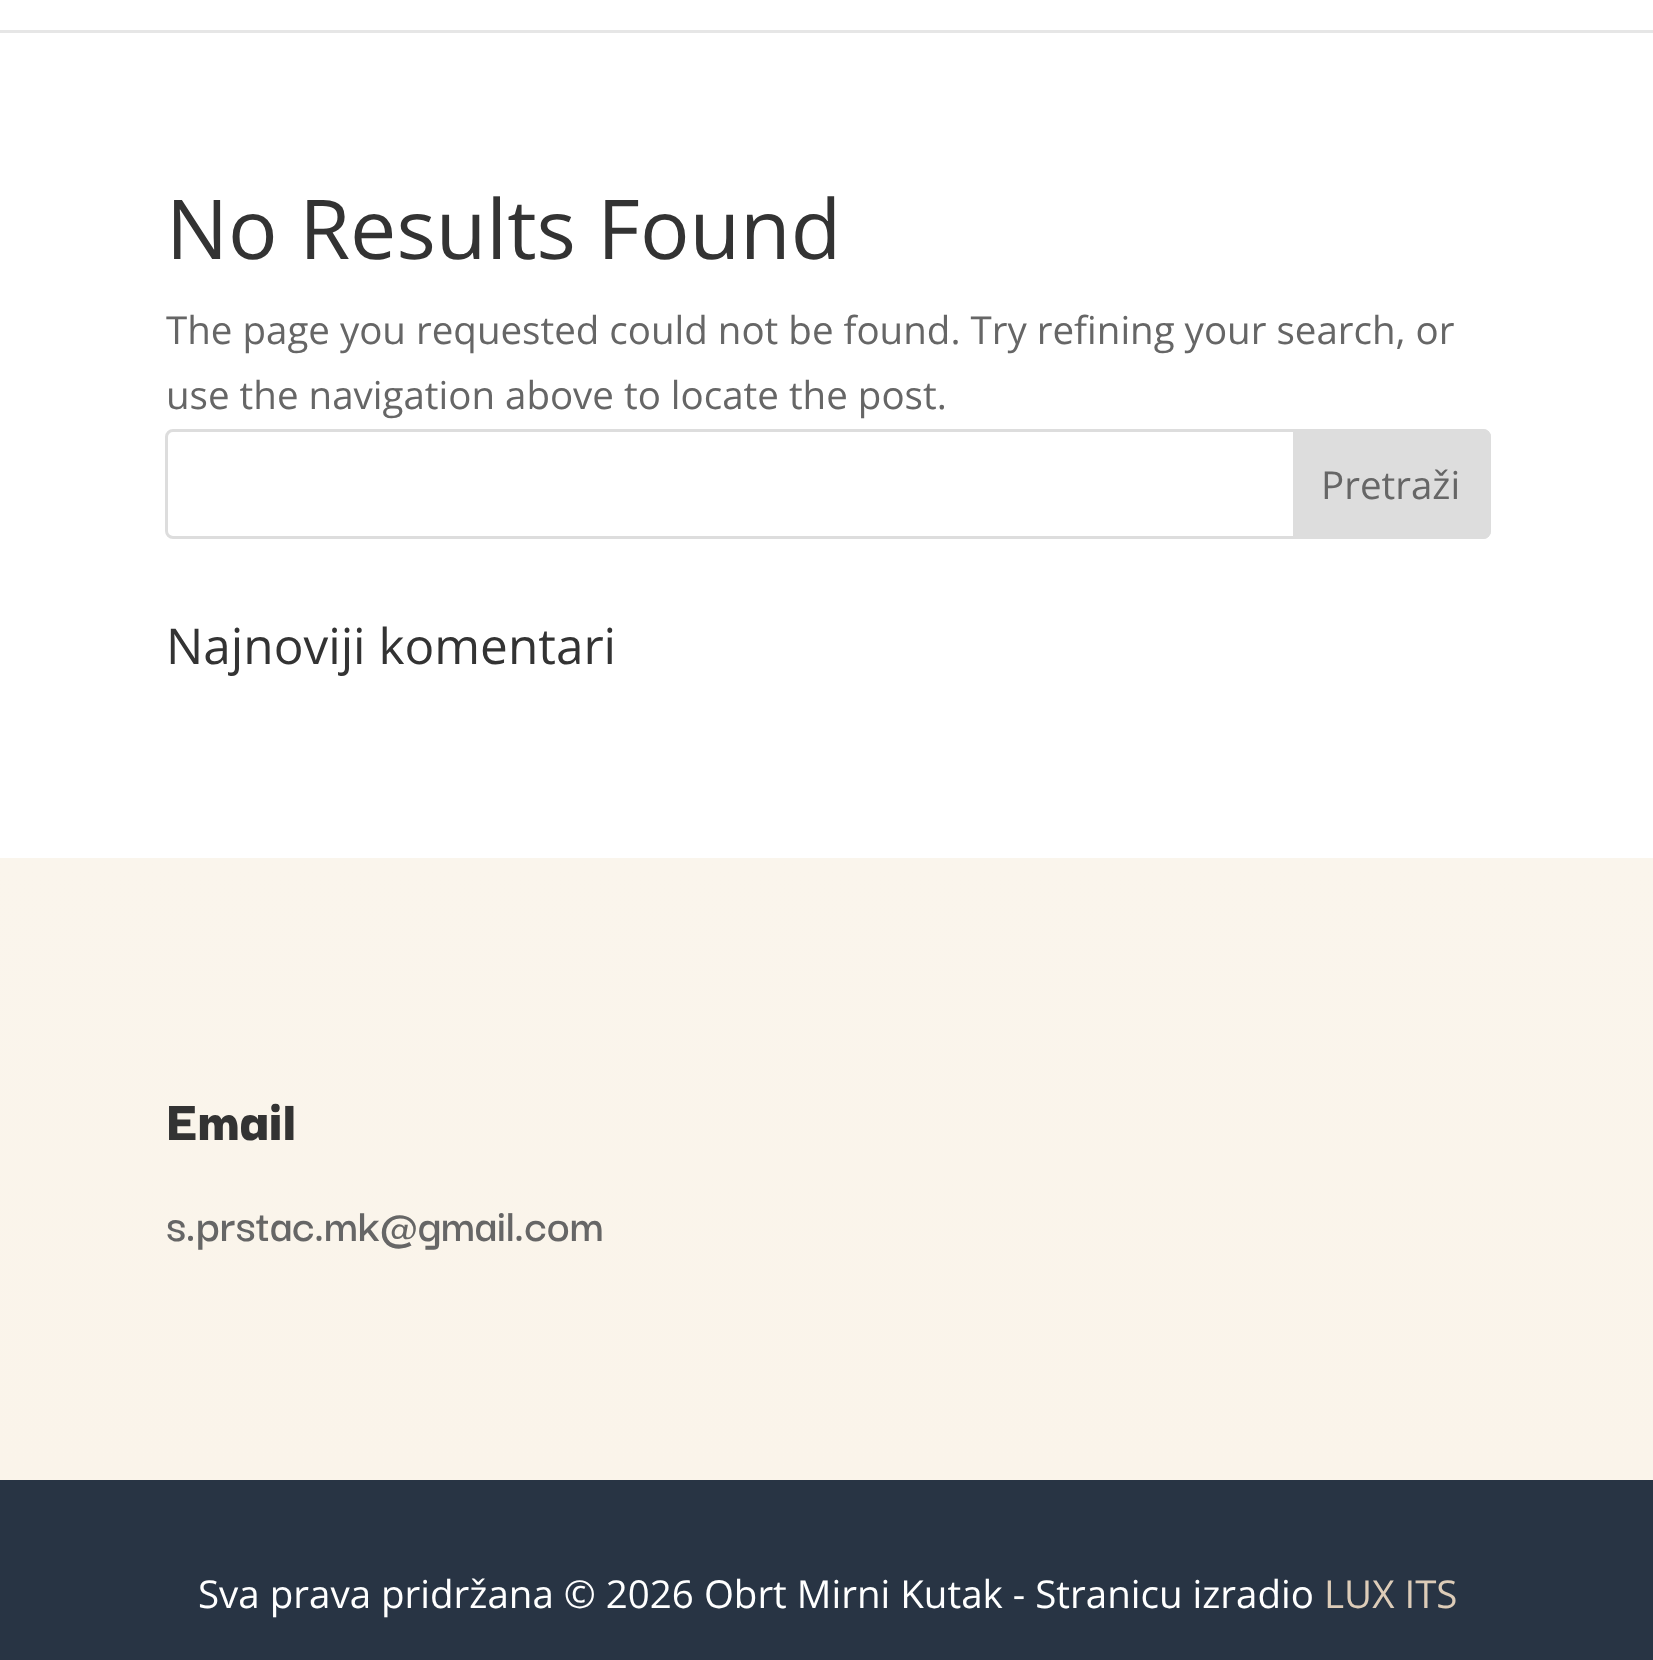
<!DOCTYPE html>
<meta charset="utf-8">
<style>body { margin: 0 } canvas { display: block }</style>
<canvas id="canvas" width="1653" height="1660"></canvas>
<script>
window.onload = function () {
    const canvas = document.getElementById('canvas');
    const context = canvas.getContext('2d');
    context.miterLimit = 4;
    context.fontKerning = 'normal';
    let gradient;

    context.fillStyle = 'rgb(255, 255, 255)';
    context.fillRect(0, 0, 1653, 1660);
    context.fillStyle = 'rgb(230, 230, 230)';
    context.beginPath();
    context.moveTo(0, 30);
    context.lineTo(0, 33);
    context.lineTo(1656, 33);
    context.lineTo(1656, -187);
    context.lineTo(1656, 30);
    context.closePath();
    context.fill();
    context.beginPath();
    context.roundRect(166.5, 430.5, 1323, 107, 6.5);
    context.strokeStyle = 'rgb(221, 221, 221)';
    context.lineWidth = 3;
    context.stroke();
    context.fillStyle = 'rgb(221, 221, 221)';
    context.beginPath();
    context.roundRect(1294.5, 430.5, 195, 107, [0, 6.5, 6.5, 0]);
    context.fill();
    context.stroke();
    gradient = context.createLinearGradient(828, 858, 828, 1480);
    gradient.addColorStop(0, 'rgb(250, 245, 236)');
    gradient.addColorStop(1, 'rgb(250, 244, 234)');
    context.fillStyle = gradient;
    context.fillRect(0, 858, 1653, 622);
    context.fillStyle = 'rgb(40, 52, 68)';
    context.fillRect(0, 1480, 1653, 180);
    context.font = '82.5px Open Sans';
    context.fillStyle = 'rgb(51, 51, 51)';
    context.fillText('No Results Found', 166, 259);
    context.font = '38.5px Open Sans';
    context.fillStyle = 'rgb(102, 102, 102)';
    context.fillText('The page you requested could not be found. Try refining your search, or', 166, 344);
    context.fillText('use the navigation above to locate the post.', 166, 409);
    context.fillText('Pretraži', 1321, 499);
    context.font = '49.5px Open Sans';
    context.fillStyle = 'rgb(51, 51, 51)';
    context.fillText('Najnoviji komentari', 166, 664);
    context.font = '300 60.5px Darker Grotesque';
    context.fillText('Email', 166, 1140);
    context.font = '600 49.5px Darker Grotesque';
    context.fillStyle = 'rgb(102, 102, 102)';
    context.fillText('s.prstac.mk@gmail.com', 166, 1241);
    context.font = '38.5px Open Sans';
    context.fillStyle = 'rgb(255, 255, 255)';
    context.fillText('Sva prava pridržana © 2026 Obrt Mirni Kutak - Stranicu izradio', 198, 1608);
    context.fillStyle = 'rgb(221, 204, 184)';
    context.fillText('LUX ITS', 1324, 1608);
};
</script>
